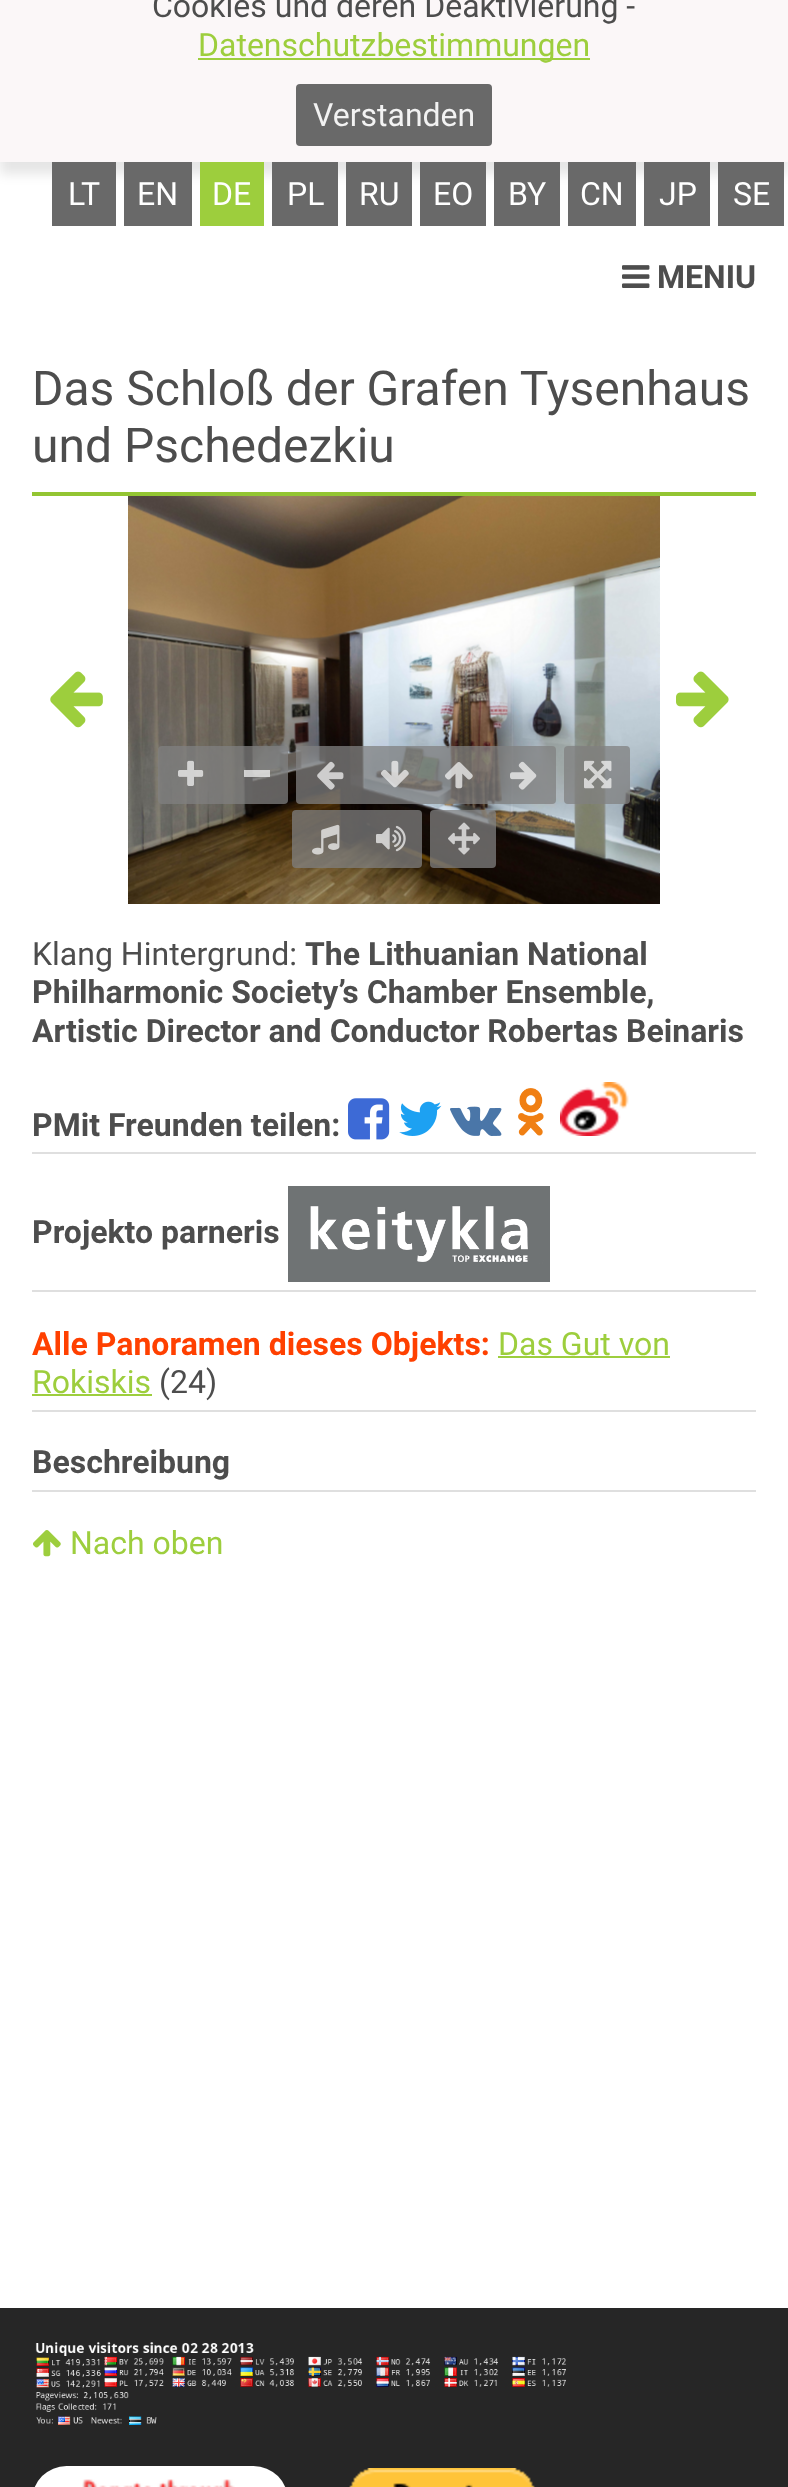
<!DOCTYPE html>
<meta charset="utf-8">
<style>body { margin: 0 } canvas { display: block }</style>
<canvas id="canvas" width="788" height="2487"></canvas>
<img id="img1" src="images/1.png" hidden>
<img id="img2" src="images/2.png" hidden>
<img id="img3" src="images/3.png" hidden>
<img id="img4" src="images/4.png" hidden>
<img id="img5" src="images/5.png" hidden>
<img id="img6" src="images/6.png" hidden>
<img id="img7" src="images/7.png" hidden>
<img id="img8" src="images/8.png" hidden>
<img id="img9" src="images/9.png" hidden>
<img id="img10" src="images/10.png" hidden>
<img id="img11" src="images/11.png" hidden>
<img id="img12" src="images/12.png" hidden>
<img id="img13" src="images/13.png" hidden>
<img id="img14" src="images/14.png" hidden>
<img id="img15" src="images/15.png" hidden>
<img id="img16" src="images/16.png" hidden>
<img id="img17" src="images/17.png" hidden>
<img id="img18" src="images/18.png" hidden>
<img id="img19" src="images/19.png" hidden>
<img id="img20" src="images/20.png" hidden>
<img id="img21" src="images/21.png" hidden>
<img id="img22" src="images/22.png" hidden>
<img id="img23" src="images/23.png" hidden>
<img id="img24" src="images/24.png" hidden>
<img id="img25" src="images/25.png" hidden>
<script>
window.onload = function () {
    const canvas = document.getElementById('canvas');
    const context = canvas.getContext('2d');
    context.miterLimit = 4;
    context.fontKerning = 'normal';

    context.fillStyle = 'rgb(255, 255, 255)';
    context.fillRect(0, 0, 788, 2487);
    context.fillStyle = 'rgba(0, 0, 0, 0.1)';
    context.filter = 'blur(6px)';
    context.beginPath();
    context.rect(0, -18, 788, 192);
    context.fill();
    context.filter = 'none';
    context.fillStyle = 'rgb(251, 247, 248)';
    context.fillRect(0, 0, 788, 162);
    context.fillStyle = 'rgb(157, 206, 61)';
    context.fillRect(198, 58, 392, 2);
    context.fillStyle = 'rgb(105, 105, 105)';
    context.beginPath();
    context.roundRect(296, 84, 196, 62, 4);
    context.fill();
    context.fillRect(52, 162, 64, 64);
    context.fillRect(124, 162, 68, 64);
    context.fillStyle = 'rgb(157, 206, 61)';
    context.fillRect(200, 162, 64, 64);
    context.fillStyle = 'rgb(105, 105, 105)';
    context.fillRect(272, 162, 66, 64);
    context.fillRect(346, 162, 66, 64);
    context.fillRect(420, 162, 66, 64);
    context.fillRect(494, 162, 66, 64);
    context.fillRect(568, 162, 68, 64);
    context.fillRect(644, 162, 66, 64);
    context.fillRect(718, 162, 66, 64);
    context.drawImage(document.getElementById('img1'), 622, 265, 28, 23);
    context.fillStyle = 'rgb(147, 197, 50)';
    context.fillRect(32, 492, 724, 4);
    context.drawImage(document.getElementById('img2'), 50, 671, 53, 57);
    context.drawImage(document.getElementById('img3'), 128, 496, 532, 408);
    context.drawImage(document.getElementById('img4'), 128, 501, 1, 399);
    context.drawImage(document.getElementById('img5'), 659, 557, 1, 318);
    context.fillStyle = 'rgba(128, 128, 128, 0.75)';
    context.beginPath();
    context.roundRect(158, 746, 66, 58, [4, 0, 0, 4]);
    context.fill();
    context.drawImage(document.getElementById('img6'), 178, 760, 26, 26);
    context.beginPath();
    context.roundRect(224, 746, 64, 58, [0, 4, 4, 0]);
    context.fill();
    context.fillStyle = 'rgba(242, 242, 242, 0.75)';
    context.fillRect(244, 770, 26, 7);
    context.fillStyle = 'rgba(128, 128, 128, 0.75)';
    context.beginPath();
    context.roundRect(296, 746, 66, 58, [4, 0, 0, 4]);
    context.fill();
    context.drawImage(document.getElementById('img7'), 317, 761, 27, 29);
    context.fillRect(362, 746, 64, 58);
    context.drawImage(document.getElementById('img8'), 381, 760, 28, 28);
    context.fillRect(426, 746, 66, 58);
    context.drawImage(document.getElementById('img9'), 445, 762, 28, 27);
    context.beginPath();
    context.roundRect(492, 746, 64, 58, [0, 4, 4, 0]);
    context.fill();
    context.drawImage(document.getElementById('img10'), 510, 761, 27, 29);
    context.beginPath();
    context.roundRect(564, 746, 66, 58, 4);
    context.fill();
    context.drawImage(document.getElementById('img11'), 584, 760, 28, 29);
    context.beginPath();
    context.roundRect(292, 810, 66, 58, [4, 0, 0, 4]);
    context.fill();
    context.drawImage(document.getElementById('img12'), 312, 824, 28, 31);
    context.beginPath();
    context.roundRect(358, 810, 64, 58, [0, 4, 4, 0]);
    context.fill();
    context.drawImage(document.getElementById('img13'), 376, 825, 30, 27);
    context.beginPath();
    context.roundRect(430, 810, 66, 58, 4);
    context.fill();
    context.drawImage(document.getElementById('img14'), 448, 822, 32, 33);
    context.drawImage(document.getElementById('img15'), 676, 671, 53, 57);
    context.fillStyle = 'rgb(223, 223, 223)';
    context.fillRect(32, 1152, 724, 2);
    context.drawImage(document.getElementById('img16'), 348, 1098, 42, 42);
    context.drawImage(document.getElementById('img17'), 399, 1101, 43, 35);
    context.drawImage(document.getElementById('img18'), 450, 1106, 52, 30);
    context.drawImage(document.getElementById('img19'), 518, 1088, 26, 48);
    context.drawImage(document.getElementById('img20'), 560, 1082, 69, 54);
    context.fillRect(32, 1290, 724, 2);
    context.drawImage(document.getElementById('img21'), 288, 1186, 262, 96);
    context.fillRect(32, 1410, 724, 2);
    context.fillStyle = 'rgb(157, 206, 61)';
    context.fillRect(498, 1356, 172, 2);
    context.fillRect(32, 1394, 120, 2);
    context.fillStyle = 'rgb(223, 223, 223)';
    context.fillRect(32, 1490, 724, 2);
    context.drawImage(document.getElementById('img22'), 33, 1530, 28, 27);
    context.fillStyle = 'rgb(38, 38, 38)';
    context.fillRect(0, 2308, 788, 179);
    context.drawImage(document.getElementById('img23'), 35, 2342, 531, 83);
    context.fillStyle = 'rgb(255, 255, 255)';
    context.beginPath();
    context.roundRect(32, 2466, 256, 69, 48);
    context.fill();
    context.drawImage(document.getElementById('img24'), 82, 2479, 153, 8);
    context.drawImage(document.getElementById('img25'), 349, 2468, 186, 19);
    context.font = '32px Roboto';
    context.fillStyle = 'rgb(77, 77, 77)';
    context.fillText('Cookies und deren Deaktivierung -', 152, 17);
    context.fillStyle = 'rgb(157, 206, 61)';
    context.fillText('Datenschutzbestimmungen', 198, 56);
    context.fillStyle = 'rgb(242, 242, 242)';
    context.fillText('Verstanden', 313, 126);
    context.fillStyle = 'rgb(255, 255, 255)';
    context.fillText('LT', 68, 205);
    context.fillText('EN', 137, 205);
    context.fillText('DE', 212, 205);
    context.fillText('PL', 287, 205);
    context.fillText('RU', 359, 205);
    context.fillText('EO', 433, 205);
    context.fillText('BY', 508, 205);
    context.fillText('CN', 580, 205);
    context.fillText('JP', 659, 205);
    context.fillText('SE', 733, 205);
    context.font = 'bold 32px Roboto';
    context.fillStyle = 'rgb(77, 77, 77)';
    context.fillText('MENIU', 657, 288);
    context.font = '48px Roboto';
    context.fillText('Das Schloß der Grafen Tysenhaus', 32, 405);
    context.fillText('und Pschedezkiu', 32, 462);
    context.font = '32px Roboto';
    context.fillText('Klang Hintergrund:', 32, 965);
    context.font = 'bold 32px Roboto';
    context.fillText('The Lithuanian National', 305, 965);
    context.fillText('Philharmonic Society’s Chamber Ensemble,', 32, 1003);
    context.fillText('Artistic Director and Conductor Robertas Beinaris', 32, 1042);
    context.fillText('PMit Freunden teilen:', 32, 1136);
    context.fillText('Projekto parneris', 32, 1243);
    context.fillStyle = 'rgb(255, 64, 0)';
    context.fillText('Alle Panoramen dieses Objekts:', 32, 1355);
    context.font = '32px Roboto';
    context.fillStyle = 'rgb(157, 206, 61)';
    context.fillText('Das Gut von', 498, 1355);
    context.fillText('Rokiskis', 32, 1393);
    context.fillStyle = 'rgb(77, 77, 77)';
    context.fillText('(24)', 159, 1393);
    context.font = 'bold 32px Roboto';
    context.fillText('Beschreibung', 32, 1473);
    context.font = '32px Roboto';
    context.fillStyle = 'rgb(157, 206, 61)';
    context.fillText('Nach oben', 70, 1554);
};
</script>
